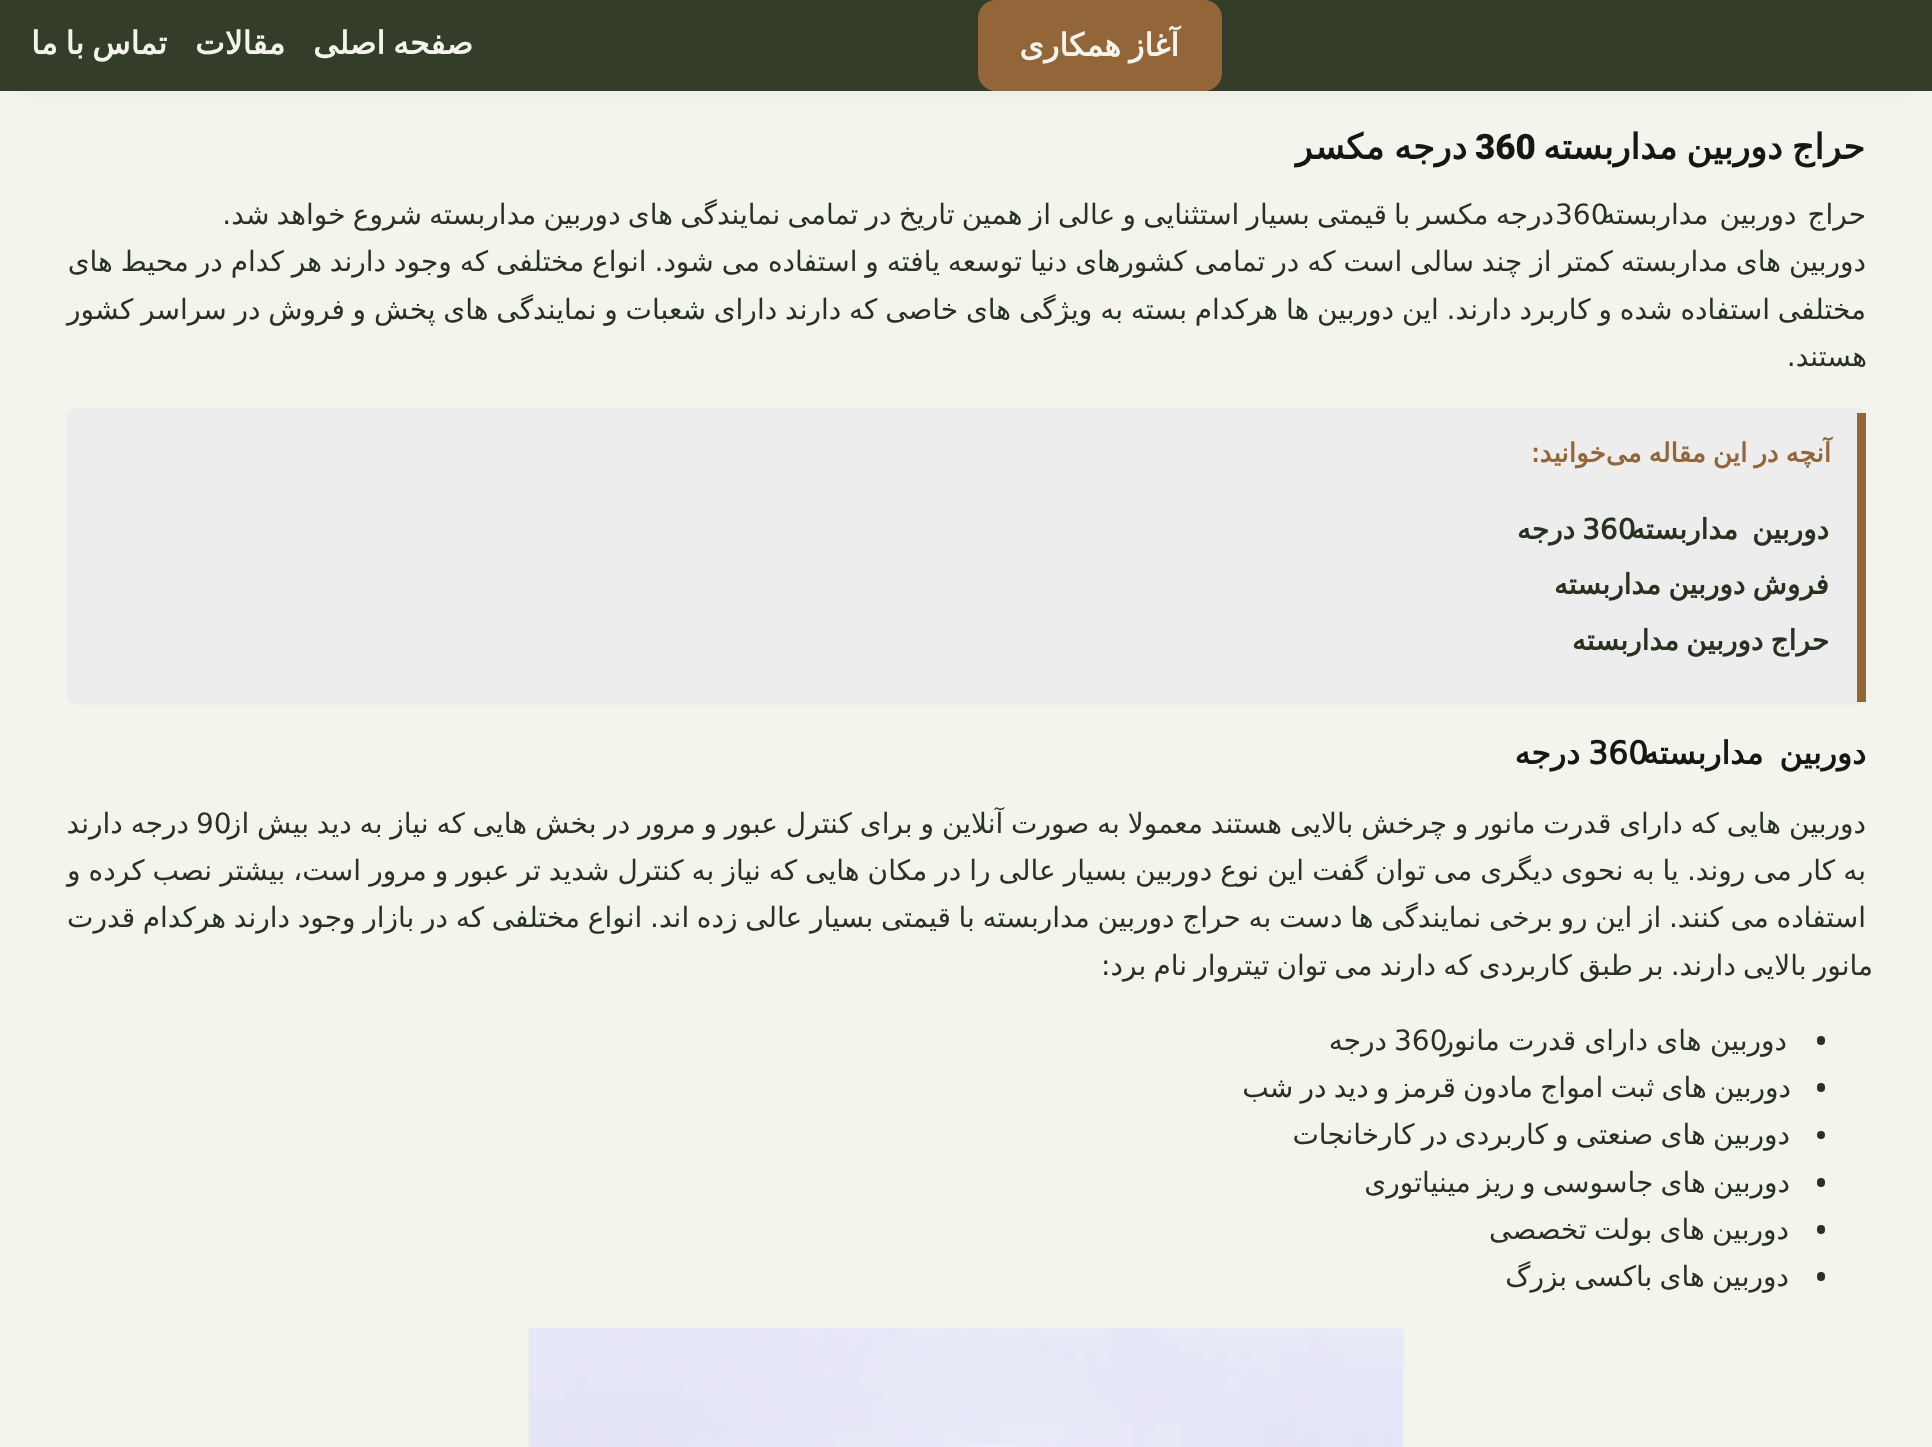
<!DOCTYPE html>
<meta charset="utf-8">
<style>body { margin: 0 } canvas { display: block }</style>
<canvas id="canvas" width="1932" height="1447"></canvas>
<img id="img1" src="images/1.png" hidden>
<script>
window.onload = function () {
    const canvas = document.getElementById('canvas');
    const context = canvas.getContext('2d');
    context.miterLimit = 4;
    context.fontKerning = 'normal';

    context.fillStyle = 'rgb(243, 244, 236)';
    context.fillRect(0, 0, 1932, 1447);
    context.fillStyle = 'rgba(0, 0, 0, 0.1)';
    context.filter = 'blur(13px)';
    context.beginPath();
    context.rect(18, 26, 1897, 56);
    context.fill();
    context.filter = 'none';
    context.fillStyle = 'rgb(51, 61, 41)';
    context.fillRect(0, 0, 1932, 91);
    context.fillStyle = 'rgb(147, 102, 57)';
    context.beginPath();
    context.roundRect(978, 0, 244, 91, 18);
    context.fill();
    context.fillStyle = 'rgb(237, 237, 237)';
    context.beginPath();
    context.roundRect(67, 408, 1799, 297, 9);
    context.fill();
    context.fillStyle = 'rgb(147, 102, 57)';
    context.fillRect(1857, 413, 9, 289);
    context.fillStyle = 'rgb(41, 49, 33)';
    context.beginPath();
    context.roundRect(1817, 1036, 8, 9, 4);
    context.fill();
    context.beginPath();
    context.roundRect(1817, 1083, 8, 9, 4);
    context.fill();
    context.beginPath();
    context.arc(1821, 1135, 4, 0, 2 * Math.PI);
    context.fill();
    context.beginPath();
    context.roundRect(1817, 1178, 8, 9, 4);
    context.fill();
    context.beginPath();
    context.roundRect(1817, 1225, 8, 9, 4);
    context.fill();
    context.beginPath();
    context.roundRect(1817, 1272, 8, 9, 4);
    context.fill();
    context.drawImage(document.getElementById('img1'), 528, 1328, 876, 119);
    context.wordSpacing = '-2px';
    context.direction = 'rtl';
    context.font = 'bold 31.5px DejaVu Sans';
    context.fillStyle = 'rgb(243, 244, 236)';
    context.fillText('آغاز همکاری', 1179, 56);
    context.fillText('صفحه اصلی', 473, 54);
    context.wordSpacing = '0px';
    context.fillText('مقالات', 285, 54);
    context.wordSpacing = '-2px';
    context.fillText('تماس با ما', 167, 54);
    context.font = 'bold 35px DejaVu Sans';
    context.fillStyle = 'rgb(20, 24, 16)';
    context.fillText('حراج دوربین مداربسته', 1865, 159);
    context.wordSpacing = '0px';
    context.direction = 'ltr';
    context.font = '900 35px Roboto';
    context.fillText('360', 1475, 159);
    context.wordSpacing = '-1.2px';
    context.direction = 'rtl';
    context.font = 'bold 35px DejaVu Sans';
    context.fillText('درجه مکسر', 1467, 159);
    context.wordSpacing = '-1.7px';
    context.font = '28px DejaVu Sans';
    context.fillStyle = 'rgb(41, 49, 33)';
    context.fillText('درجه مکسر با قیمتی بسیار استثنایی و عالی از همین تاریخ در تمامی نمایندگی های دوربین مداربسته شروع خواهد شد.', 1554, 224);
    context.wordSpacing = '0px';
    context.direction = 'ltr';
    context.fillText('360', 1555, 224);
    context.wordSpacing = '2px';
    context.direction = 'rtl';
    context.fillText('حراج دوربین مداربسته', 1866, 224);
    context.wordSpacing = '-1px';
    context.fillText('دوربین های مداربسته کمتر از چند سالی است که در تمامی کشورهای دنیا توسعه یافته و استفاده می شود. انواع مختلفی که وجود دارند هر کدام در محیط های', 1866, 271);
    context.wordSpacing = '-1.1px';
    context.fillText('مختلفی استفاده شده و کاربرد دارند. این دوربین ها هرکدام بسته به ویژگی های خاصی که دارند دارای شعبات و نمایندگی های پخش و فروش در سراسر کشور', 1866, 319);
    context.wordSpacing = '0px';
    context.fillText('هستند.', 1867, 366);
    context.wordSpacing = '-1.5px';
    context.font = 'bold 26.25px DejaVu Sans';
    context.fillStyle = 'rgb(147, 102, 57)';
    context.fillText('آنچه در این مقاله می‌خوانید:', 1831, 462);
    context.wordSpacing = '0px';
    context.direction = 'ltr';
    context.font = 'bold 28px DejaVu Sans';
    context.fillStyle = 'rgb(41, 49, 33)';
    context.fillText('360', 1582, 539);
    context.wordSpacing = '5px';
    context.direction = 'rtl';
    context.fillText('دوربین مداربسته', 1829, 539);
    context.wordSpacing = '0px';
    context.fillText('درجه', 1575, 539);
    context.wordSpacing = '-1.7px';
    context.fillText('فروش دوربین مداربسته', 1829, 594);
    context.fillText('حراج دوربین مداربسته', 1829, 650);
    context.wordSpacing = '0px';
    context.direction = 'ltr';
    context.font = 'bold 31.5px DejaVu Sans';
    context.fillStyle = 'rgb(20, 24, 16)';
    context.fillText('360', 1588, 764);
    context.wordSpacing = '6px';
    context.direction = 'rtl';
    context.fillText('دوربین مداربسته', 1866, 764);
    context.wordSpacing = '0px';
    context.fillText('درجه', 1580, 764);
    context.direction = 'ltr';
    context.font = '28px DejaVu Sans';
    context.fillStyle = 'rgb(41, 49, 33)';
    context.fillText('90', 196, 833);
    context.wordSpacing = '-1.05px';
    context.direction = 'rtl';
    context.fillText('دوربین هایی که دارای قدرت مانور و چرخش بالایی هستند معمولا به صورت آنلاین و برای کنترل عبور و مرور در بخش هایی که نیاز به دید بیش از', 1866, 833);
    context.wordSpacing = '-1px';
    context.fillText('درجه دارند', 189, 833);
    context.wordSpacing = '-0.85px';
    context.fillText('به کار می روند. یا به نحوی دیگری می توان گفت این نوع دوربین بسیار عالی را در مکان هایی که نیاز به کنترل شدید تر عبور و مرور است، بیشتر نصب کرده و', 1866, 880);
    context.wordSpacing = '-1.2px';
    context.fillText('استفاده می کنند. از این رو برخی نمایندگی ها دست به حراج دوربین مداربسته با قیمتی بسیار عالی زده اند. انواع مختلفی که در بازار وجود دارند هرکدام قدرت', 1866, 927);
    context.wordSpacing = '-1.7px';
    context.fillText('مانور بالایی دارند. بر طبق کاربردی که دارند می توان تیتروار نام برد:', 1873, 975);
    context.wordSpacing = '0px';
    context.direction = 'ltr';
    context.fillText('360', 1394, 1050);
    context.wordSpacing = '-0.5px';
    context.direction = 'rtl';
    context.fillText('دوربین های دارای قدرت مانور', 1787, 1050);
    context.wordSpacing = '0px';
    context.fillText('درجه', 1387, 1050);
    context.wordSpacing = '-1.7px';
    context.fillText('دوربین های ثبت امواج مادون قرمز و دید در شب', 1791, 1097);
    context.fillText('دوربین های صنعتی و کاربردی در کارخانجات', 1790, 1144);
    context.fillText('دوربین های جاسوسی و ریز مینیاتوری', 1790, 1192);
    context.fillText('دوربین های بولت تخصصی', 1789, 1239);
    context.fillText('دوربین های باکسی بزرگ', 1789, 1286);
};
</script>
